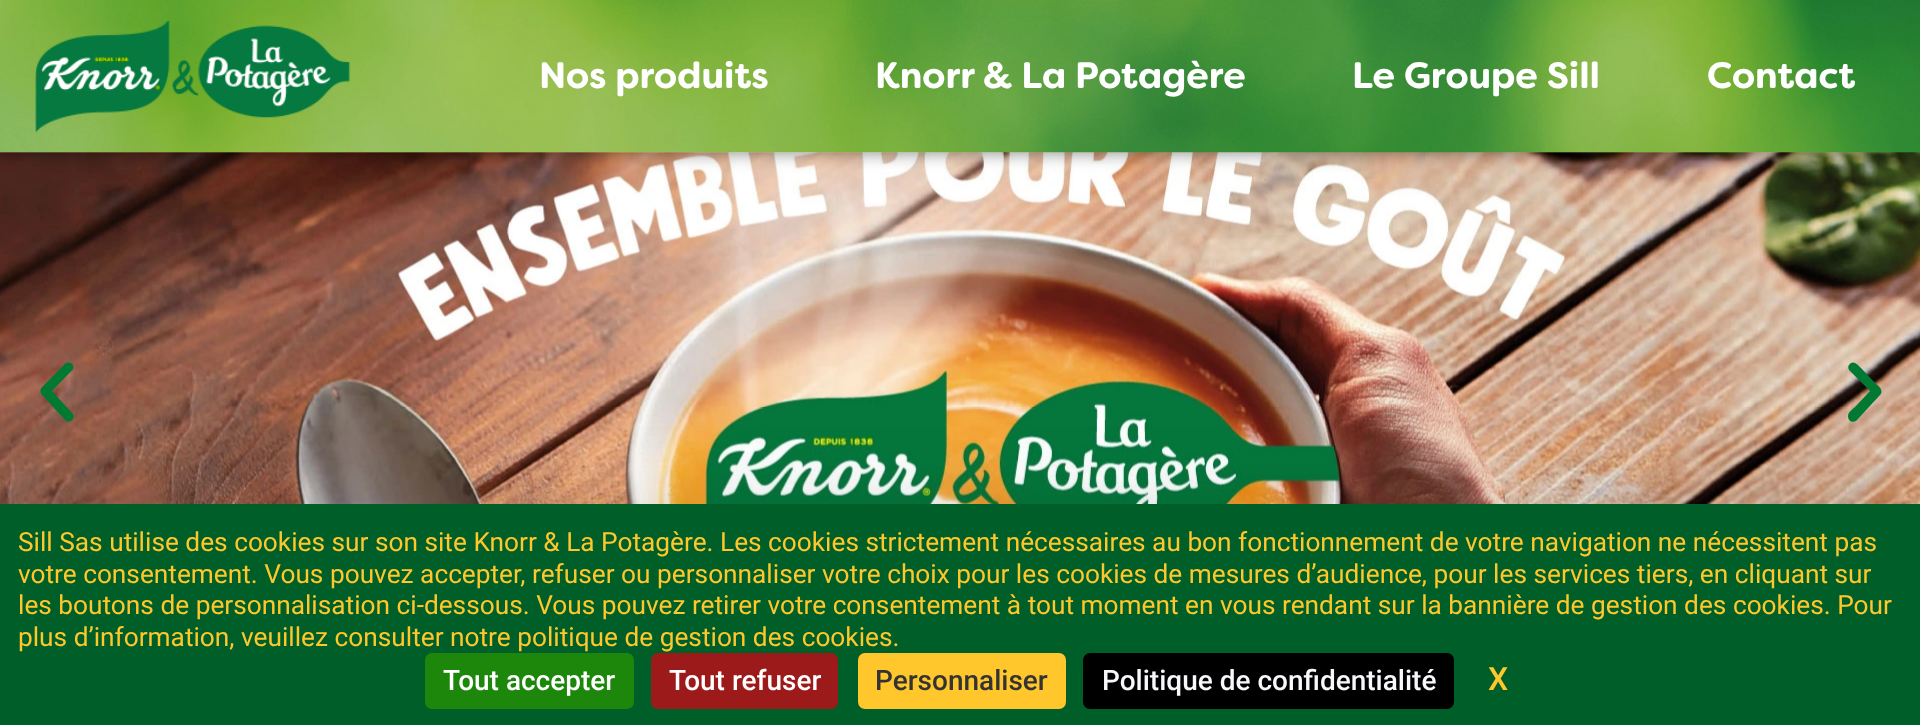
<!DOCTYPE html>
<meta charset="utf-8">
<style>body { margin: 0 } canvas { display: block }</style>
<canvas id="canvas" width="1920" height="725"></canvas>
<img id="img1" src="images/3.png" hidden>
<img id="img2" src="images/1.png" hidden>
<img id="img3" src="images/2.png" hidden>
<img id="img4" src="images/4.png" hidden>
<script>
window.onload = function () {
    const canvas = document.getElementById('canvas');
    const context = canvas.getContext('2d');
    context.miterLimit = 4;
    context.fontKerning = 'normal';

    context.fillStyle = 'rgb(255, 255, 255)';
    context.fillRect(0, 0, 1920, 725);
    context.drawImage(document.getElementById('img1'), 0, 152, 1920, 352);
    context.fillStyle = 'rgba(0, 0, 0, 0.5)';
    context.filter = 'blur(9px)';
    context.beginPath();
    context.rect(0, 0, 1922, 152);
    context.fill();
    context.filter = 'none';
    context.drawImage(document.getElementById('img2'), 0, 0, 1920, 153);
    context.drawImage(document.getElementById('img3'), 35, 20, 316, 113);
    context.drawImage(document.getElementById('img4'), 40, 362, 34, 60);
    context.fillStyle = 'rgb(0, 122, 51)';
    context.beginPath();
    context.moveTo(1880, 395);
    context.bezierCurveTo(1884, 391, 1879, 386, 1876, 384);
    context.lineTo(1861, 368);
    context.bezierCurveTo(1858, 365, 1853, 359, 1849, 365);
    context.bezierCurveTo(1848, 366, 1848, 368, 1849, 370);
    context.lineTo(1870, 391);
    context.lineTo(1856, 406);
    context.bezierCurveTo(1853, 409, 1848, 412, 1848, 416);
    context.bezierCurveTo(1848, 421, 1852, 423, 1856, 421);
    context.closePath();
    context.fill();
    context.fillStyle = 'rgba(0, 0, 0, 0.25)';
    context.filter = 'blur(52.5px)';
    context.beginPath();
    context.rect(0, 539, 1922, 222);
    context.fill();
    context.filter = 'none';
    context.fillStyle = 'rgb(0, 95, 40)';
    context.fillRect(0, 504, 1920, 221);
    context.fillStyle = 'rgb(28, 135, 11)';
    context.beginPath();
    context.roundRect(425, 653, 209, 56, 7);
    context.fill();
    context.fillStyle = 'rgb(156, 26, 26)';
    context.beginPath();
    context.roundRect(651, 653, 187, 56, 7);
    context.fill();
    context.fillStyle = 'rgb(255, 199, 44)';
    context.beginPath();
    context.roundRect(858, 653, 208, 56, 7);
    context.fill();
    context.fillStyle = 'rgb(0, 0, 0)';
    context.beginPath();
    context.roundRect(1083, 653, 371, 56, 7);
    context.fill();
    context.font = 'bold 36.75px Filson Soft';
    context.fillStyle = 'rgb(255, 255, 255)';
    context.fillText('Nos produits', 539, 88);
    context.fillText('Knorr & La Potagère', 875, 88);
    context.fillText('Le Groupe Sill', 1352, 88);
    context.fillText('Contact', 1707, 88);
    context.font = '26.25px Roboto';
    context.fillStyle = 'rgb(255, 199, 44)';
    context.fillText('Sill Sas utilise des cookies sur son site Knorr & La Potagère. Les cookies strictement nécessaires au bon fonctionnement de votre navigation ne nécessitent pas', 18, 551);
    context.fillText('votre consentement. Vous pouvez accepter, refuser ou personnaliser votre choix pour les cookies de mesures d’audience, pour les services tiers, en cliquant sur', 18, 583);
    context.fillText('les boutons de personnalisation ci-dessous. Vous pouvez retirer votre consentement à tout moment en vous rendant sur la bannière de gestion des cookies. Pour', 18, 614);
    context.fillText('plus d’information, veuillez consulter notre politique de gestion des cookies.', 18, 646);
    context.font = '500 28px Roboto';
    context.fillStyle = 'rgb(255, 255, 255)';
    context.fillText('Tout accepter', 443, 690);
    context.fillText('Tout refuser', 669, 690);
    context.fillStyle = 'rgb(51, 51, 51)';
    context.fillText('Personnaliser', 875, 690);
    context.fillStyle = 'rgb(247, 247, 252)';
    context.fillText('Politique de confidentialité', 1102, 690);
    context.font = '500 32px Roboto';
    context.fillStyle = 'rgb(255, 199, 44)';
    context.fillText('X', 1488, 690);
};
</script>
